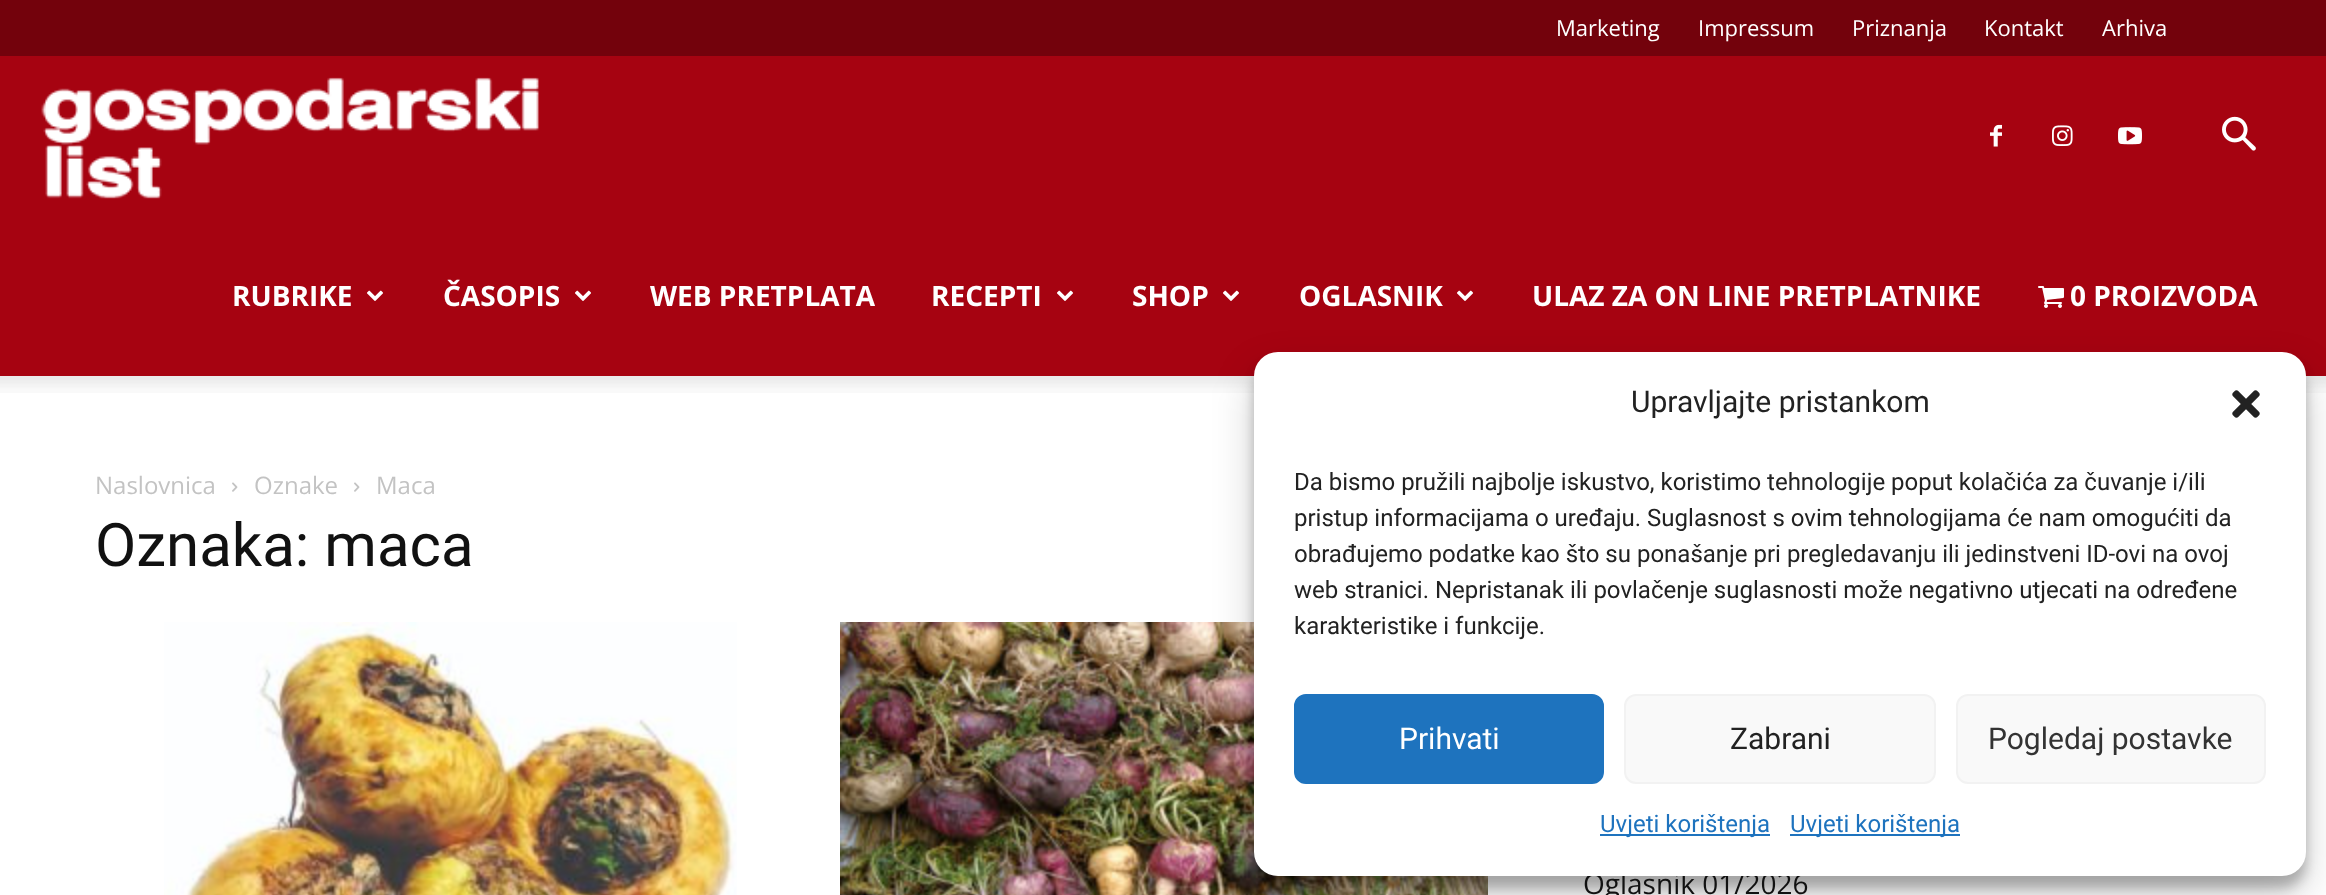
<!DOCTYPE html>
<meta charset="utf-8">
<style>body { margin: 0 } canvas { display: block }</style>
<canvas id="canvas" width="2326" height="895"></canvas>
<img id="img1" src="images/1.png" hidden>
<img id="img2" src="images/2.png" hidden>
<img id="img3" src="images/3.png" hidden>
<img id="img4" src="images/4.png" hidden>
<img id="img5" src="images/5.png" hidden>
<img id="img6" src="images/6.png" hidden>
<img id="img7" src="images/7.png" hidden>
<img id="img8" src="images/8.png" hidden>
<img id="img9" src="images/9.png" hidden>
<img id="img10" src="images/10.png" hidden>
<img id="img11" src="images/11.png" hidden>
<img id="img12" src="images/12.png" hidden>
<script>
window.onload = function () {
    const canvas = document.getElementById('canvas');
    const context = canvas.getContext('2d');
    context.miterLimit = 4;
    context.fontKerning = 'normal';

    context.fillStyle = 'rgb(255, 255, 255)';
    context.fillRect(0, 0, 2326, 895);
    context.fillStyle = 'rgb(115, 2, 12)';
    context.fillRect(0, 0, 2326, 56);
    context.fillStyle = 'rgb(166, 3, 17)';
    context.fillRect(0, 56, 2326, 320);
    context.drawImage(document.getElementById('img1'), 1990, 124, 12, 23);
    context.drawImage(document.getElementById('img2'), 2052, 125, 21, 21);
    context.drawImage(document.getElementById('img3'), 2118, 127, 24, 18);
    context.drawImage(document.getElementById('img4'), 2222, 116, 34, 35);
    context.drawImage(document.getElementById('img5'), 41, 77, 498, 122);
    context.drawImage(document.getElementById('img6'), 367, 290, 16, 11);
    context.drawImage(document.getElementById('img6'), 575, 290, 16, 11);
    context.drawImage(document.getElementById('img6'), 1057, 290, 16, 11);
    context.drawImage(document.getElementById('img6'), 1223, 290, 16, 11);
    context.drawImage(document.getElementById('img6'), 1457, 290, 16, 11);
    context.drawImage(document.getElementById('img7'), 2038, 286, 26, 22);
    context.drawImage(document.getElementById('img8'), 0, 376, 2326, 17);
    context.drawImage(document.getElementById('img9'), 232, 482, 6, 10);
    context.drawImage(document.getElementById('img9'), 354, 482, 6, 10);
    context.drawImage(document.getElementById('img10'), 164, 622, 573, 273);
    context.drawImage(document.getElementById('img11'), 840, 622, 648, 273);
    context.fillStyle = 'rgba(0, 0, 0, 0.23)';
    context.filter = 'blur(6px)';
    context.beginPath();
    context.roundRect(1254, 364, 1052, 524, 24);
    context.fill();
    context.filter = 'none';
    context.fillStyle = 'rgba(0, 0, 0, 0.19)';
    context.filter = 'blur(20px)';
    context.beginPath();
    context.roundRect(1254, 372, 1052, 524, 24);
    context.fill();
    context.filter = 'none';
    context.font = '22px Open Sans';
    context.fillStyle = 'rgb(255, 255, 255)';
    context.fillText('Marketing', 1556, 36);
    context.fillText('Impressum', 1698, 36);
    context.fillText('Priznanja', 1852, 36);
    context.fillText('Kontakt', 1984, 36);
    context.fillText('Arhiva', 2102, 36);
    context.font = 'bold 28px Open Sans';
    context.fillText('RUBRIKE', 232, 306);
    context.fillText('ČASOPIS', 443, 306);
    context.fillText('WEB PRETPLATA', 650, 306);
    context.fillText('RECEPTI', 931, 306);
    context.fillText('SHOP', 1132, 306);
    context.fillText('OGLASNIK', 1299, 306);
    context.fillText('ULAZ ZA ON LINE PRETPLATNIKE', 1532, 306);
    context.fillText('0 PROIZVODA', 2070, 306);
    context.font = '24px Open Sans';
    context.fillStyle = 'rgb(195, 195, 195)';
    context.fillText('Naslovnica', 95, 494);
    context.fillText('Oznake', 254, 494);
    context.fillText('Maca', 376, 494);
    context.font = '60px Roboto';
    context.fillStyle = 'rgb(17, 17, 17)';
    context.fillText('Oznaka: maca', 95, 566);
    context.font = '28px Open Sans';
    context.fillText('Oglasnik 01/2026', 1583, 894);
    context.fillStyle = 'rgb(255, 255, 255)';
    context.beginPath();
    context.roundRect(1254, 352, 1052, 524, 24);
    context.fill();
    context.font = '30px Roboto';
    context.fillStyle = 'rgb(34, 34, 34)';
    context.fillText('Upravljajte pristankom', 1631, 412);
    context.drawImage(document.getElementById('img12'), 2232, 390, 28, 28);
    context.font = '24px Roboto';
    context.fillText('Da bismo pružili najbolje iskustvo, koristimo tehnologije poput kolačića za čuvanje i/ili', 1294, 490);
    context.fillText('pristup informacijama o uređaju. Suglasnost s ovim tehnologijama će nam omogućiti da', 1294, 526);
    context.fillText('obrađujemo podatke kao što su ponašanje pri pregledavanju ili jedinstveni ID-ovi na ovoj', 1294, 562);
    context.fillText('web stranici. Nepristanak ili povlačenje suglasnosti može negativno utjecati na određene', 1294, 598);
    context.fillText('karakteristike i funkcije.', 1294, 634);
    context.fillStyle = 'rgb(30, 115, 190)';
    context.beginPath();
    context.roundRect(1295, 695, 308, 88, 11);
    context.fill();
    context.strokeStyle = 'rgb(30, 115, 190)';
    context.lineWidth = 2;
    context.stroke();
    context.font = '30px Roboto';
    context.fillStyle = 'rgb(255, 255, 255)';
    context.fillText('Prihvati', 1399, 749);
    context.fillStyle = 'rgb(249, 249, 249)';
    context.beginPath();
    context.roundRect(1625, 695, 310, 88, 11);
    context.fill();
    context.strokeStyle = 'rgb(242, 242, 242)';
    context.stroke();
    context.fillStyle = 'rgb(34, 34, 34)';
    context.fillText('Zabrani', 1730, 749);
    context.fillStyle = 'rgb(249, 249, 249)';
    context.beginPath();
    context.roundRect(1957, 695, 308, 88, 11);
    context.fill();
    context.stroke();
    context.fillStyle = 'rgb(51, 51, 51)';
    context.fillText('Pogledaj postavke', 1988, 749);
    context.fillStyle = 'rgb(30, 115, 190)';
    context.fillRect(1600, 834, 170, 2);
    context.font = '24px Roboto';
    context.fillText('Uvjeti korištenja', 1600, 832);
    context.fillRect(1790, 834, 170, 2);
    context.fillText('Uvjeti korištenja', 1790, 832);
};
</script>
